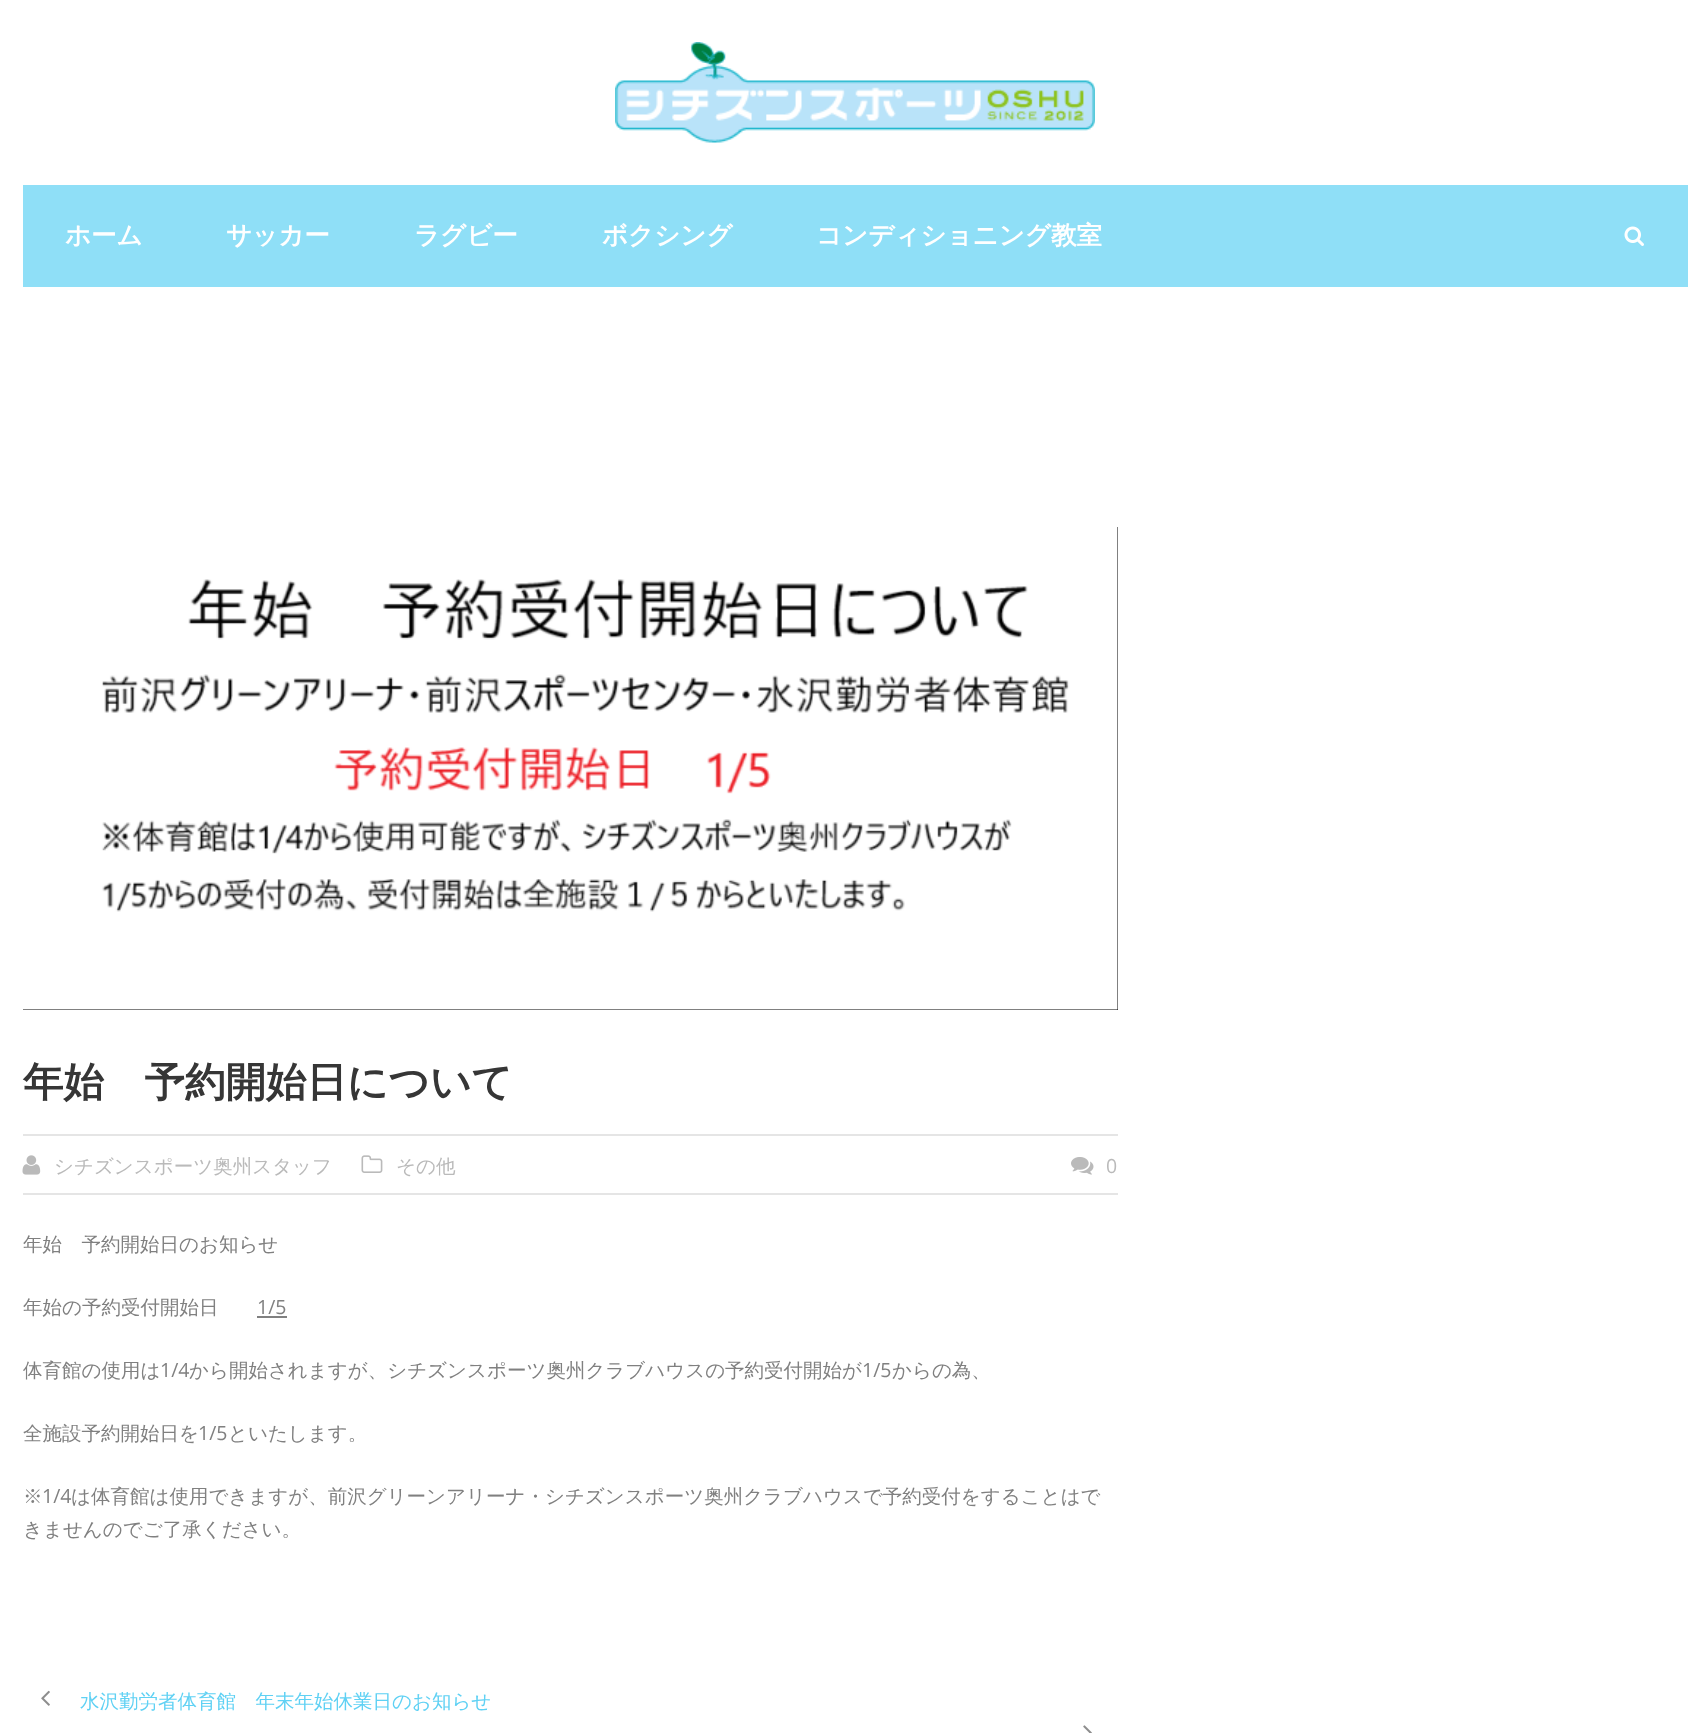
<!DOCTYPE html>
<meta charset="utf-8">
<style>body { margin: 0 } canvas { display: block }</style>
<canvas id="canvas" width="1691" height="1733"></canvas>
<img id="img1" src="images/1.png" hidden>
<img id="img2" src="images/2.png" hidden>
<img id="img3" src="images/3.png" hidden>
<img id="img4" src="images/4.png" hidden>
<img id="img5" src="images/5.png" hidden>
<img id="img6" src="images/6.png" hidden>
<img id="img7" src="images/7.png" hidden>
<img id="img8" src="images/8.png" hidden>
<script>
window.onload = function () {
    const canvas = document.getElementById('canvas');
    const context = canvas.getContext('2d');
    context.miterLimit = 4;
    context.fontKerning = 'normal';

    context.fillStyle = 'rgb(255, 255, 255)';
    context.fillRect(0, 0, 1691, 1733);
    context.drawImage(document.getElementById('img1'), 615, 42, 480, 101);
    context.fillStyle = 'rgb(143, 223, 247)';
    context.fillRect(23, 185, 1665, 102);
    context.drawImage(document.getElementById('img2'), 1624, 226, 20, 20);
    context.fillStyle = 'rgb(0, 0, 0)';
    context.fillRect(23, 527, 1095, 483);
    context.drawImage(document.getElementById('img3'), 23, 527, 1095, 483);
    context.fillStyle = 'rgb(229, 229, 229)';
    context.fillRect(23, 1134, 1095, 2);
    context.fillRect(23, 1193, 1095, 2);
    context.drawImage(document.getElementById('img4'), 22, 1155, 19, 20);
    context.drawImage(document.getElementById('img5'), 361, 1155, 22, 18);
    context.drawImage(document.getElementById('img6'), 1071, 1157, 23, 18);
    context.fillStyle = 'rgb(128, 128, 128)';
    context.fillRect(257, 1316, 30, 2);
    context.drawImage(document.getElementById('img7'), 41, 1690, 9, 16);
    context.drawImage(document.getElementById('img8'), 1083, 1725, 9, 8);
    context.font = 'bold 25.5px WenQuanYi Zen Hei';
    context.fillStyle = 'rgb(255, 255, 255)';
    context.fillText('ホーム', 65, 244);
    context.fillText('サッカー', 226, 244);
    context.fillText('ラグビー', 414, 244);
    context.fillText('ボクシング', 602, 244);
    context.fillText('コンディショニング教室', 816, 244);
    context.font = 'bold 40.5px WenQuanYi Zen Hei';
    context.fillStyle = 'rgb(54, 54, 54)';
    context.fillText('年始　予約開始日について', 23, 1096);
    context.font = '500 19.5px WenQuanYi Zen Hei';
    context.fillStyle = 'rgb(186, 186, 186)';
    context.fillText('シチズンスポーツ奥州スタッフ', 54, 1173);
    context.fillText('その他', 396, 1173);
    context.font = '19.5px Open Sans';
    context.fillText('0', 1106, 1173);
    context.font = '500 19.5px WenQuanYi Zen Hei';
    context.fillStyle = 'rgb(128, 128, 128)';
    context.fillText('年始　予約開始日のお知らせ', 23, 1251);
    context.fillText('年始の予約受付開始日', 23, 1314);
    context.font = '19.5px Open Sans';
    context.fillText('1/5', 257, 1314);
    context.font = '500 19.5px WenQuanYi Zen Hei';
    context.fillText('体育館の使用は', 23, 1377);
    context.font = '19.5px Open Sans';
    context.fillText('1/4', 160, 1377);
    context.font = '500 19.5px WenQuanYi Zen Hei';
    context.fillText('から開始されますが、シチズンスポーツ奥州クラブハウスの予約受付開始が', 189, 1377);
    context.font = '19.5px Open Sans';
    context.fillText('1/5', 862, 1377);
    context.font = '500 19.5px WenQuanYi Zen Hei';
    context.fillText('からの為、', 892, 1377);
    context.fillText('全施設予約開始日を', 23, 1440);
    context.font = '19.5px Open Sans';
    context.fillText('1/5', 198, 1440);
    context.font = '500 19.5px WenQuanYi Zen Hei';
    context.fillText('といたします。', 228, 1440);
    context.fillText('※', 23, 1503);
    context.font = '19.5px Open Sans';
    context.fillText('1/4', 42, 1503);
    context.font = '500 19.5px WenQuanYi Zen Hei';
    context.fillText('は体育館は使用できますが、前沢グリーンアリーナ・シチズンスポーツ奥州クラブハウスで予約受付をすることはで', 71, 1503);
    context.fillText('きませんのでご了承ください。', 23, 1536);
    context.fillStyle = 'rgb(95, 209, 244)';
    context.fillText('水沢勤労者体育館　年末年始休業日のお知らせ', 80, 1708);
};
</script>
